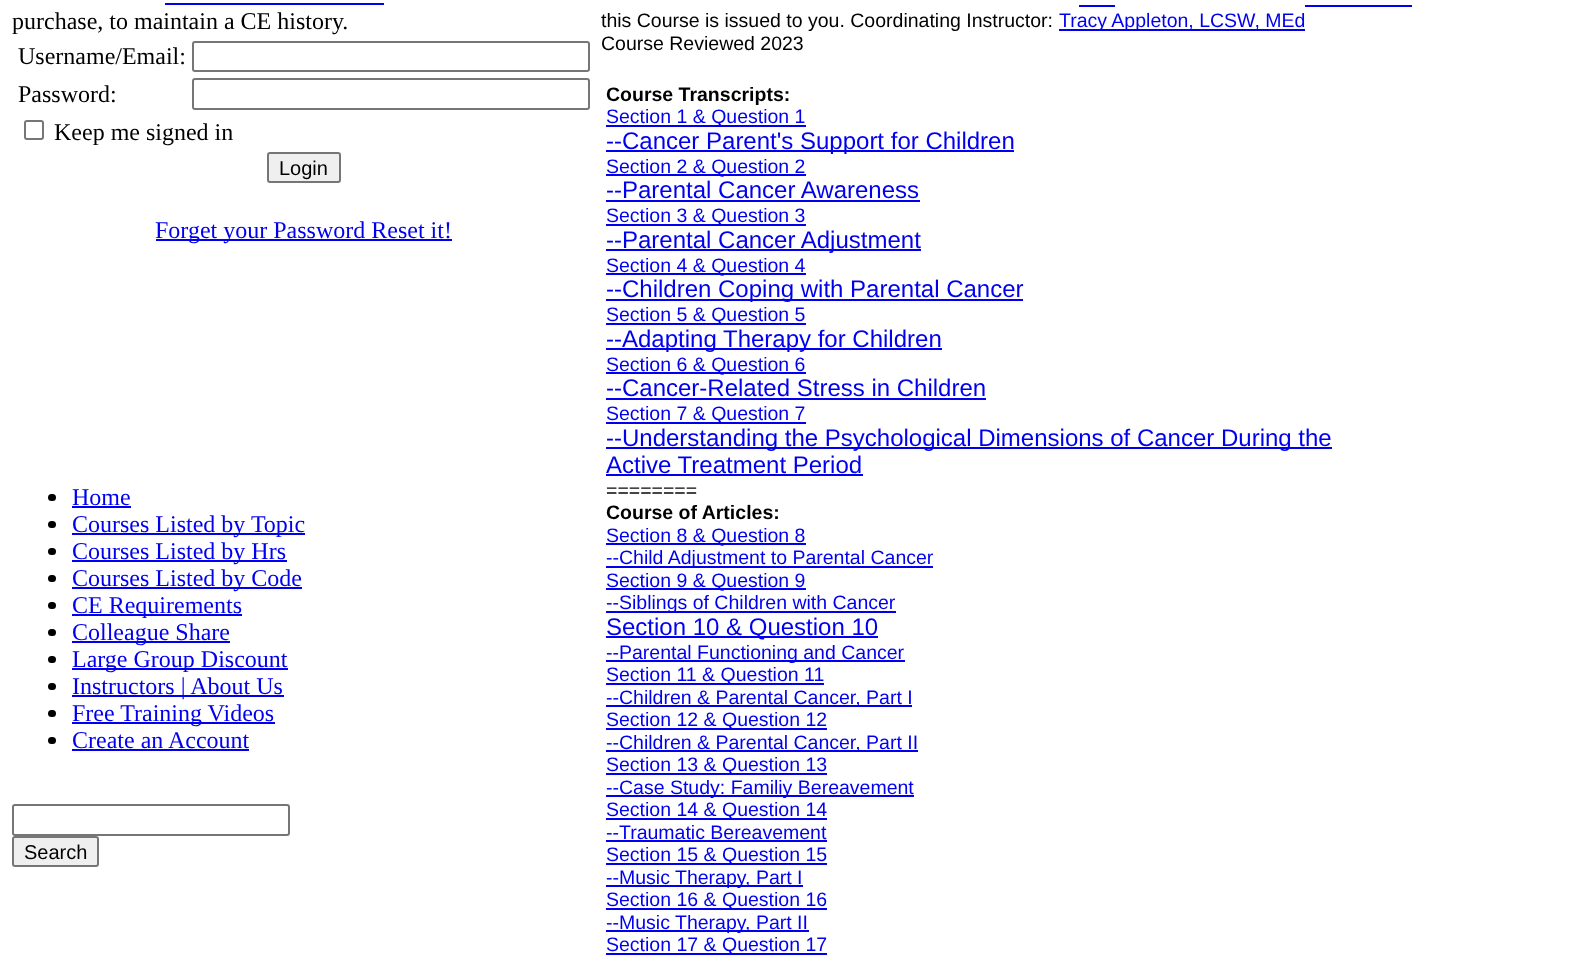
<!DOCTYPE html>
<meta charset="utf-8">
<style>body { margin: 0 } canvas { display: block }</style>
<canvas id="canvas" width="1581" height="962"></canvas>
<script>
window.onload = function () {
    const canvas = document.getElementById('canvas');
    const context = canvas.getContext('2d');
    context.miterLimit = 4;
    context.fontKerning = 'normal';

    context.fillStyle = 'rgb(255, 255, 255)';
    context.fillRect(0, 0, 1581, 962);
    context.fillStyle = 'rgb(0, 0, 238)';
    context.fillRect(165, 3, 219, 2);
    context.beginPath();
    context.roundRect(193, 42, 396, 29, 2);
    context.strokeStyle = 'rgb(118, 118, 118)';
    context.lineWidth = 2;
    context.stroke();
    context.beginPath();
    context.roundRect(193, 79, 396, 30, 2);
    context.stroke();
    context.beginPath();
    context.roundRect(25, 121, 18, 18, 2);
    context.stroke();
    context.fillStyle = 'rgb(239, 239, 239)';
    context.beginPath();
    context.roundRect(268, 153, 72, 29, 2);
    context.fill();
    context.stroke();
    context.fillStyle = 'rgb(0, 0, 238)';
    context.fillRect(156, 239, 296, 2);
    context.fillStyle = 'rgb(0, 0, 0)';
    context.beginPath();
    context.roundRect(48, 494, 8, 7, 3.5);
    context.fill();
    context.fillStyle = 'rgb(0, 0, 238)';
    context.fillRect(72, 506, 59, 2);
    context.fillStyle = 'rgb(0, 0, 0)';
    context.beginPath();
    context.roundRect(48, 521, 8, 7, 3.5);
    context.fill();
    context.fillStyle = 'rgb(0, 0, 238)';
    context.fillRect(72, 533, 233, 2);
    context.fillStyle = 'rgb(0, 0, 0)';
    context.beginPath();
    context.roundRect(48, 548, 8, 7, 3.5);
    context.fill();
    context.fillStyle = 'rgb(0, 0, 238)';
    context.fillRect(72, 560, 215, 2);
    context.fillStyle = 'rgb(0, 0, 0)';
    context.beginPath();
    context.roundRect(48, 575, 8, 7, 3.5);
    context.fill();
    context.fillStyle = 'rgb(0, 0, 238)';
    context.fillRect(72, 587, 230, 2);
    context.fillStyle = 'rgb(0, 0, 0)';
    context.beginPath();
    context.roundRect(48, 602, 8, 7, 3.5);
    context.fill();
    context.fillStyle = 'rgb(0, 0, 238)';
    context.fillRect(72, 614, 170, 2);
    context.fillStyle = 'rgb(0, 0, 0)';
    context.beginPath();
    context.roundRect(48, 629, 8, 7, 3.5);
    context.fill();
    context.fillStyle = 'rgb(0, 0, 238)';
    context.fillRect(72, 641, 158, 2);
    context.fillStyle = 'rgb(0, 0, 0)';
    context.beginPath();
    context.roundRect(48, 656, 8, 7, 3.5);
    context.fill();
    context.fillStyle = 'rgb(0, 0, 238)';
    context.fillRect(72, 668, 216, 2);
    context.fillStyle = 'rgb(0, 0, 0)';
    context.beginPath();
    context.roundRect(48, 683, 8, 7, 3.5);
    context.fill();
    context.fillStyle = 'rgb(0, 0, 238)';
    context.fillRect(72, 695, 212, 2);
    context.fillStyle = 'rgb(0, 0, 0)';
    context.beginPath();
    context.roundRect(48, 710, 8, 7, 3.5);
    context.fill();
    context.fillStyle = 'rgb(0, 0, 238)';
    context.fillRect(72, 722, 203, 2);
    context.fillStyle = 'rgb(0, 0, 0)';
    context.beginPath();
    context.roundRect(48, 737, 8, 7, 3.5);
    context.fill();
    context.fillStyle = 'rgb(0, 0, 238)';
    context.fillRect(72, 749, 177, 2);
    context.beginPath();
    context.roundRect(13, 805, 276, 30, 2);
    context.stroke();
    context.fillStyle = 'rgb(239, 239, 239)';
    context.beginPath();
    context.roundRect(13, 837, 85, 29, 2);
    context.fill();
    context.stroke();
    context.fillStyle = 'rgb(0, 0, 238)';
    context.fillRect(1079, 5, 36, 2);
    context.fillRect(1305, 5, 107, 2);
    context.fillRect(1059, 29, 246, 2);
    context.fillRect(606, 125, 200, 2);
    context.fillRect(606, 150, 408, 2);
    context.fillRect(606, 174, 200, 2);
    context.fillRect(606, 200, 314, 2);
    context.fillRect(606, 224, 200, 2);
    context.fillRect(606, 249, 315, 2);
    context.fillRect(606, 273, 200, 2);
    context.fillRect(606, 299, 417, 2);
    context.fillRect(606, 323, 200, 2);
    context.fillRect(606, 348, 336, 2);
    context.fillRect(606, 372, 200, 2);
    context.fillRect(606, 398, 380, 2);
    context.fillRect(606, 422, 200, 2);
    context.fillRect(606, 447, 726, 2);
    context.fillRect(606, 474, 257, 2);
    context.fillRect(606, 543, 200, 2);
    context.fillRect(606, 566, 327, 2);
    context.fillRect(606, 588, 200, 2);
    context.fillRect(606, 611, 290, 2);
    context.fillRect(606, 636, 272, 2);
    context.fillRect(606, 660, 299, 2);
    context.fillRect(606, 683, 218, 2);
    context.fillRect(606, 705, 306, 2);
    context.fillRect(606, 728, 221, 2);
    context.fillRect(606, 750, 312, 2);
    context.fillRect(606, 773, 221, 2);
    context.fillRect(606, 795, 308, 2);
    context.fillRect(606, 818, 221, 2);
    context.fillRect(606, 840, 221, 2);
    context.fillRect(606, 863, 221, 2);
    context.fillRect(606, 885, 197, 2);
    context.fillRect(606, 908, 221, 2);
    context.fillRect(606, 930, 203, 2);
    context.fillRect(606, 953, 221, 2);
    context.font = '24px Liberation Serif';
    context.fillStyle = 'rgb(0, 0, 0)';
    context.fillText('purchase, to maintain a CE history.', 12, 29);
    context.fillText('Username/Email:', 18, 64);
    context.fillText('Password:', 18, 102);
    context.fillText('Keep me signed in', 54, 140);
    context.font = '20px Liberation Sans';
    context.fillText('Login', 279, 175);
    context.font = '24px Liberation Serif';
    context.fillStyle = 'rgb(0, 0, 238)';
    context.fillText('Forget your Password Reset it!', 155, 238);
    context.fillText('Home', 72, 505);
    context.fillText('Courses Listed by Topic', 72, 532);
    context.fillText('Courses Listed by Hrs', 72, 559);
    context.fillText('Courses Listed by Code', 72, 586);
    context.fillText('CE Requirements', 72, 613);
    context.fillText('Colleague Share', 72, 640);
    context.fillText('Large Group Discount', 72, 667);
    context.fillText('Instructors | About Us', 72, 694);
    context.fillText('Free Training Videos', 72, 721);
    context.fillText('Create an Account', 72, 748);
    context.font = '20px Liberation Sans';
    context.fillStyle = 'rgb(0, 0, 0)';
    context.fillText('Search', 24, 859);
    context.font = '19.5px Liberation Sans';
    context.fillText('this Course is issued to you. Coordinating Instructor:', 601, 27);
    context.fillStyle = 'rgb(0, 0, 238)';
    context.fillText('Tracy Appleton, LCSW, MEd', 1059, 27);
    context.fillStyle = 'rgb(0, 0, 0)';
    context.fillText('Course Reviewed 2023', 601, 50);
    context.font = 'bold 19.5px Liberation Sans';
    context.fillText('Course Transcripts:', 606, 101);
    context.font = '19.5px Liberation Sans';
    context.fillStyle = 'rgb(0, 0, 238)';
    context.fillText('Section 1 & Question 1', 606, 123);
    context.font = '24px Liberation Sans';
    context.fillText('--Cancer Parent\'s Support for Children', 606, 149);
    context.font = '19.5px Liberation Sans';
    context.fillText('Section 2 & Question 2', 606, 173);
    context.font = '24px Liberation Sans';
    context.fillText('--Parental Cancer Awareness', 606, 198);
    context.font = '19.5px Liberation Sans';
    context.fillText('Section 3 & Question 3', 606, 222);
    context.font = '24px Liberation Sans';
    context.fillText('--Parental Cancer Adjustment', 606, 248);
    context.font = '19.5px Liberation Sans';
    context.fillText('Section 4 & Question 4', 606, 272);
    context.font = '24px Liberation Sans';
    context.fillText('--Children Coping with Parental Cancer', 606, 297);
    context.font = '19.5px Liberation Sans';
    context.fillText('Section 5 & Question 5', 606, 321);
    context.font = '24px Liberation Sans';
    context.fillText('--Adapting Therapy for Children', 606, 347);
    context.font = '19.5px Liberation Sans';
    context.fillText('Section 6 & Question 6', 606, 371);
    context.font = '24px Liberation Sans';
    context.fillText('--Cancer-Related Stress in Children', 606, 396);
    context.font = '19.5px Liberation Sans';
    context.fillText('Section 7 & Question 7', 606, 420);
    context.font = '24px Liberation Sans';
    context.fillText('--Understanding the Psychological Dimensions of Cancer During the', 606, 446);
    context.fillText('Active Treatment Period', 606, 473);
    context.font = '19.5px Liberation Sans';
    context.fillStyle = 'rgb(0, 0, 0)';
    context.fillText('========', 606, 497);
    context.font = 'bold 19.5px Liberation Sans';
    context.fillText('Course of Articles:', 606, 519);
    context.font = '19.5px Liberation Sans';
    context.fillStyle = 'rgb(0, 0, 238)';
    context.fillText('Section 8 & Question 8', 606, 542);
    context.fillText('--Child Adjustment to Parental Cancer', 606, 564);
    context.fillText('Section 9 & Question 9', 606, 587);
    context.fillText('--Siblings of Children with Cancer', 606, 609);
    context.font = '24px Liberation Sans';
    context.fillText('Section 10 & Question 10', 606, 635);
    context.font = '19.5px Liberation Sans';
    context.fillText('--Parental Functioning and Cancer', 606, 659);
    context.fillText('Section 11 & Question 11', 606, 681);
    context.fillText('--Children & Parental Cancer, Part I', 606, 704);
    context.fillText('Section 12 & Question 12', 606, 726);
    context.fillText('--Children & Parental Cancer, Part II', 606, 749);
    context.fillText('Section 13 & Question 13', 606, 771);
    context.fillText('--Case Study: Familiy Bereavement', 606, 794);
    context.fillText('Section 14 & Question 14', 606, 816);
    context.fillText('--Traumatic Bereavement', 606, 839);
    context.fillText('Section 15 & Question 15', 606, 861);
    context.fillText('--Music Therapy, Part I', 606, 884);
    context.fillText('Section 16 & Question 16', 606, 906);
    context.fillText('--Music Therapy, Part II', 606, 929);
    context.fillText('Section 17 & Question 17', 606, 951);
};
</script>
